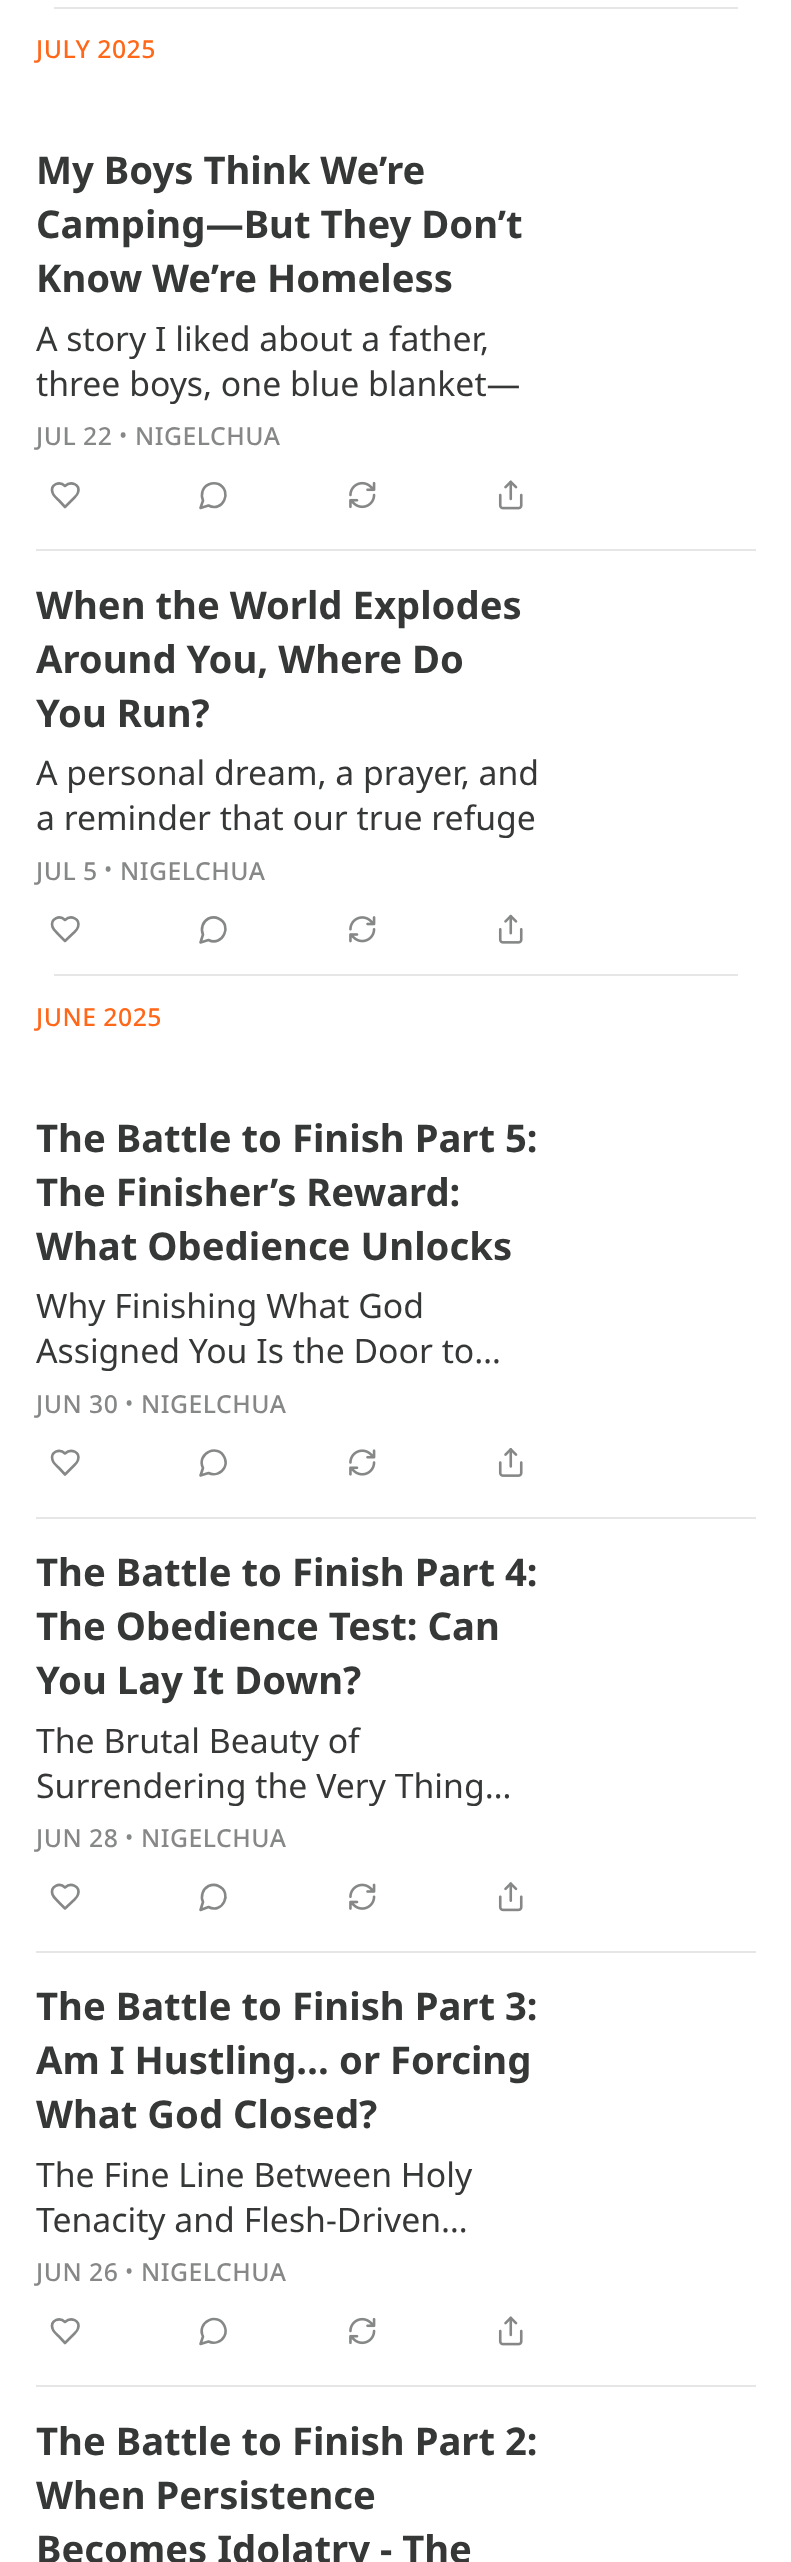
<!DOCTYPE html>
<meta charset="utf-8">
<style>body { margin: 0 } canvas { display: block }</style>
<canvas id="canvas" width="791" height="2562"></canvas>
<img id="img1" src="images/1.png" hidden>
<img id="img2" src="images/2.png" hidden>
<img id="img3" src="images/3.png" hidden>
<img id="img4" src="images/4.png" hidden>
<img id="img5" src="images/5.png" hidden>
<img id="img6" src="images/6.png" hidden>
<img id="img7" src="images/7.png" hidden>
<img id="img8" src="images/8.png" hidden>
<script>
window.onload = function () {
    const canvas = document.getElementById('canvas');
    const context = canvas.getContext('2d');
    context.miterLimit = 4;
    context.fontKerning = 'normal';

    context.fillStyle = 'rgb(255, 255, 255)';
    context.fillRect(0, 0, 791, 2562);
    context.fillStyle = 'rgb(230, 230, 230)';
    context.fillRect(54, 7, 684, 2);
    context.beginPath();
    context.moveTo(74.5, 497.5);
    context.bezierCurveTo(76, 496, 77.5, 494.5, 78, 492.5);
    context.bezierCurveTo(80.5, 484.5, 71, 480.5, 65, 486);
    context.bezierCurveTo(59.5, 480.5, 50, 484.5, 52.5, 492.5);
    context.bezierCurveTo(53.5, 496, 57, 498.5, 59, 500.5);
    context.lineTo(65, 507);
    context.closePath();
    context.strokeStyle = 'rgb(134, 135, 135)';
    context.lineWidth = 2.6;
    context.lineCap = 'round';
    context.lineJoin = 'round';
    context.stroke();
    context.beginPath();
    context.moveTo(208.5, 505.5);
    context.bezierCurveTo(222.5, 513, 233, 491, 218.5, 484);
    context.bezierCurveTo(215.5, 483, 212, 483, 208.5, 484.5);
    context.bezierCurveTo(202.5, 487, 200.5, 494.5, 203, 500.5);
    context.lineTo(200.5, 508);
    context.closePath();
    context.stroke();
    context.drawImage(document.getElementById('img1'), 349, 481, 27, 28);
    context.drawImage(document.getElementById('img2'), 498, 480, 25, 30);
    context.fillRect(36, 549, 720, 2);
    context.beginPath();
    context.moveTo(74.5, 932);
    context.bezierCurveTo(76, 930.5, 77.5, 929, 78, 927);
    context.bezierCurveTo(80.5, 919, 71, 914.5, 65, 920);
    context.bezierCurveTo(59.5, 914.5, 50, 919, 52.5, 927);
    context.bezierCurveTo(53.5, 930, 57, 932.5, 59, 935);
    context.lineTo(65, 941);
    context.closePath();
    context.stroke();
    context.beginPath();
    context.moveTo(208.5, 940);
    context.bezierCurveTo(222.5, 947, 233, 925, 218.5, 918.5);
    context.bezierCurveTo(215.5, 917, 212, 917, 208.5, 918.5);
    context.bezierCurveTo(202.5, 921.5, 200.5, 929, 203, 934.5);
    context.lineTo(200.5, 942.5);
    context.closePath();
    context.stroke();
    context.drawImage(document.getElementById('img3'), 349, 916, 27, 27);
    context.drawImage(document.getElementById('img4'), 498, 914, 25, 30);
    context.fillRect(54, 974, 684, 2);
    context.beginPath();
    context.moveTo(74.5, 1465);
    context.bezierCurveTo(76, 1463.5, 77.5, 1462, 78, 1460);
    context.bezierCurveTo(80.5, 1452, 71, 1448, 65, 1453.5);
    context.bezierCurveTo(59.5, 1448, 50, 1452, 52.5, 1460);
    context.bezierCurveTo(53.5, 1463.5, 57, 1466, 59, 1468);
    context.lineTo(65, 1474.5);
    context.closePath();
    context.stroke();
    context.beginPath();
    context.moveTo(208.5, 1473);
    context.bezierCurveTo(214, 1476, 221.5, 1473.5, 224.5, 1467.5);
    context.bezierCurveTo(226, 1464.5, 226, 1461, 224.5, 1457.5);
    context.bezierCurveTo(218, 1443, 196, 1453.5, 203, 1468);
    context.lineTo(200.5, 1475.5);
    context.closePath();
    context.stroke();
    context.drawImage(document.getElementById('img5'), 349, 1449, 27, 27);
    context.drawImage(document.getElementById('img6'), 498, 1448, 25, 29);
    context.fillRect(36, 1517, 720, 2);
    context.beginPath();
    context.moveTo(74.5, 1899.5);
    context.bezierCurveTo(76, 1898, 77.5, 1896.5, 78, 1894.5);
    context.bezierCurveTo(80.5, 1886.5, 71, 1882, 65, 1887.5);
    context.bezierCurveTo(59.5, 1882, 50, 1886.5, 52.5, 1894.5);
    context.bezierCurveTo(53.5, 1897.5, 57, 1900, 59, 1902.5);
    context.lineTo(65, 1908.5);
    context.closePath();
    context.stroke();
    context.beginPath();
    context.moveTo(208.5, 1907);
    context.bezierCurveTo(222.5, 1914.5, 233, 1892.5, 218.5, 1886);
    context.bezierCurveTo(215.5, 1884.5, 212, 1884.5, 208.5, 1886);
    context.bezierCurveTo(202.5, 1889, 200.5, 1896.5, 203, 1902);
    context.lineTo(200.5, 1910);
    context.closePath();
    context.stroke();
    context.drawImage(document.getElementById('img7'), 349, 1883, 27, 27);
    context.drawImage(document.getElementById('img8'), 498, 1882, 25, 30);
    context.fillRect(36, 1951, 720, 2);
    context.beginPath();
    context.moveTo(74.5, 2333.5);
    context.bezierCurveTo(76, 2332, 77.5, 2330.5, 78, 2328.5);
    context.bezierCurveTo(80.5, 2320.5, 71, 2316.5, 65, 2322);
    context.bezierCurveTo(59.5, 2316.5, 50, 2320.5, 52.5, 2328.5);
    context.bezierCurveTo(53.5, 2332, 57, 2334.5, 59, 2336.5);
    context.lineTo(65, 2343);
    context.closePath();
    context.stroke();
    context.beginPath();
    context.moveTo(208.5, 2341.5);
    context.bezierCurveTo(214, 2344.5, 221.5, 2342, 224.5, 2336);
    context.bezierCurveTo(226, 2333, 226, 2329.5, 224.5, 2326);
    context.bezierCurveTo(218, 2311.5, 196, 2322, 203, 2336.5);
    context.lineTo(200.5, 2344);
    context.closePath();
    context.stroke();
    context.drawImage(document.getElementById('img1'), 349, 2317, 27, 28);
    context.drawImage(document.getElementById('img2'), 498, 2316, 25, 30);
    context.fillRect(36, 2385, 720, 2);
    context.letterSpacing = '0.5px';
    context.font = '500 24.75px Noto Sans';
    context.fillStyle = 'rgb(255, 103, 25)';
    context.fillText('JULY 2025', 36, 58);
    context.letterSpacing = '0px';
    context.font = 'bold 38.25px Noto Sans';
    context.fillStyle = 'rgb(54, 55, 55)';
    context.fillText('My Boys Think We’re', 36, 184);
    context.fillText('Camping—But They Don’t', 36, 238);
    context.fillText('Know We’re Homeless', 36, 292);
    context.font = '33.75px Noto Sans';
    context.fillText('A story I liked about a father,', 36, 351);
    context.fillText('three boys, one blue blanket—', 36, 396);
    context.letterSpacing = '0.5px';
    context.font = '500 24.75px Noto Sans';
    context.fillStyle = 'rgb(134, 135, 135)';
    context.fillText('JUL 22', 36, 445);
    context.font = '22px Noto Sans';
    context.fillText('•', 119, 443);
    context.font = '500 24.75px Noto Sans';
    context.fillText('NIGELCHUA', 135, 445);
    context.letterSpacing = '0px';
    context.font = 'bold 38.25px Noto Sans';
    context.fillStyle = 'rgb(54, 55, 55)';
    context.fillText('When the World Explodes', 36, 619);
    context.fillText('Around You, Where Do', 36, 673);
    context.fillText('You Run?', 36, 727);
    context.font = '33.75px Noto Sans';
    context.fillText('A personal dream, a prayer, and', 36, 785);
    context.fillText('a reminder that our true refuge', 36, 830);
    context.letterSpacing = '0.5px';
    context.font = '500 24.75px Noto Sans';
    context.fillStyle = 'rgb(134, 135, 135)';
    context.fillText('JUL 5', 36, 880);
    context.font = '22px Noto Sans';
    context.fillText('•', 104, 877);
    context.font = '500 24.75px Noto Sans';
    context.fillText('NIGELCHUA', 120, 880);
    context.fillStyle = 'rgb(255, 103, 25)';
    context.fillText('JUNE 2025', 36, 1026);
    context.letterSpacing = '0px';
    context.font = 'bold 38.25px Noto Sans';
    context.fillStyle = 'rgb(54, 55, 55)';
    context.fillText('The Battle to Finish Part 5:', 36, 1152);
    context.fillText('The Finisher’s Reward:', 36, 1206);
    context.fillText('What Obedience Unlocks', 36, 1260);
    context.font = '33.75px Noto Sans';
    context.fillText('Why Finishing What God', 36, 1318);
    context.fillText('Assigned You Is the Door to…', 36, 1363);
    context.letterSpacing = '0.5px';
    context.font = '500 24.75px Noto Sans';
    context.fillStyle = 'rgb(134, 135, 135)';
    context.fillText('JUN 30', 36, 1413);
    context.font = '22px Noto Sans';
    context.fillText('•', 125, 1411);
    context.font = '500 24.75px Noto Sans';
    context.fillText('NIGELCHUA', 141, 1413);
    context.letterSpacing = '0px';
    context.font = 'bold 38.25px Noto Sans';
    context.fillStyle = 'rgb(54, 55, 55)';
    context.fillText('The Battle to Finish Part 4:', 36, 1586);
    context.fillText('The Obedience Test: Can', 36, 1640);
    context.fillText('You Lay It Down?', 36, 1694);
    context.font = '33.75px Noto Sans';
    context.fillText('The Brutal Beauty of', 36, 1753);
    context.fillText('Surrendering the Very Thing…', 36, 1798);
    context.letterSpacing = '0.5px';
    context.font = '500 24.75px Noto Sans';
    context.fillStyle = 'rgb(134, 135, 135)';
    context.fillText('JUN 28', 36, 1847);
    context.font = '22px Noto Sans';
    context.fillText('•', 125, 1845);
    context.font = '500 24.75px Noto Sans';
    context.fillText('NIGELCHUA', 141, 1847);
    context.letterSpacing = '0px';
    context.font = 'bold 38.25px Noto Sans';
    context.fillStyle = 'rgb(54, 55, 55)';
    context.fillText('The Battle to Finish Part 3:', 36, 2020);
    context.fillText('Am I Hustling… or Forcing', 36, 2074);
    context.fillText('What God Closed?', 36, 2128);
    context.font = '33.75px Noto Sans';
    context.fillText('The Fine Line Between Holy', 36, 2187);
    context.fillText('Tenacity and Flesh-Driven…', 36, 2232);
    context.letterSpacing = '0.5px';
    context.font = '500 24.75px Noto Sans';
    context.fillStyle = 'rgb(134, 135, 135)';
    context.fillText('JUN 26', 36, 2281);
    context.font = '22px Noto Sans';
    context.fillText('•', 125, 2279);
    context.font = '500 24.75px Noto Sans';
    context.fillText('NIGELCHUA', 141, 2281);
    context.letterSpacing = '0px';
    context.font = 'bold 38.25px Noto Sans';
    context.fillStyle = 'rgb(54, 55, 55)';
    context.fillText('The Battle to Finish Part 2:', 36, 2455);
    context.fillText('When Persistence', 36, 2509);
    context.fillText('Becomes Idolatry - The', 36, 2563);
};
</script>
